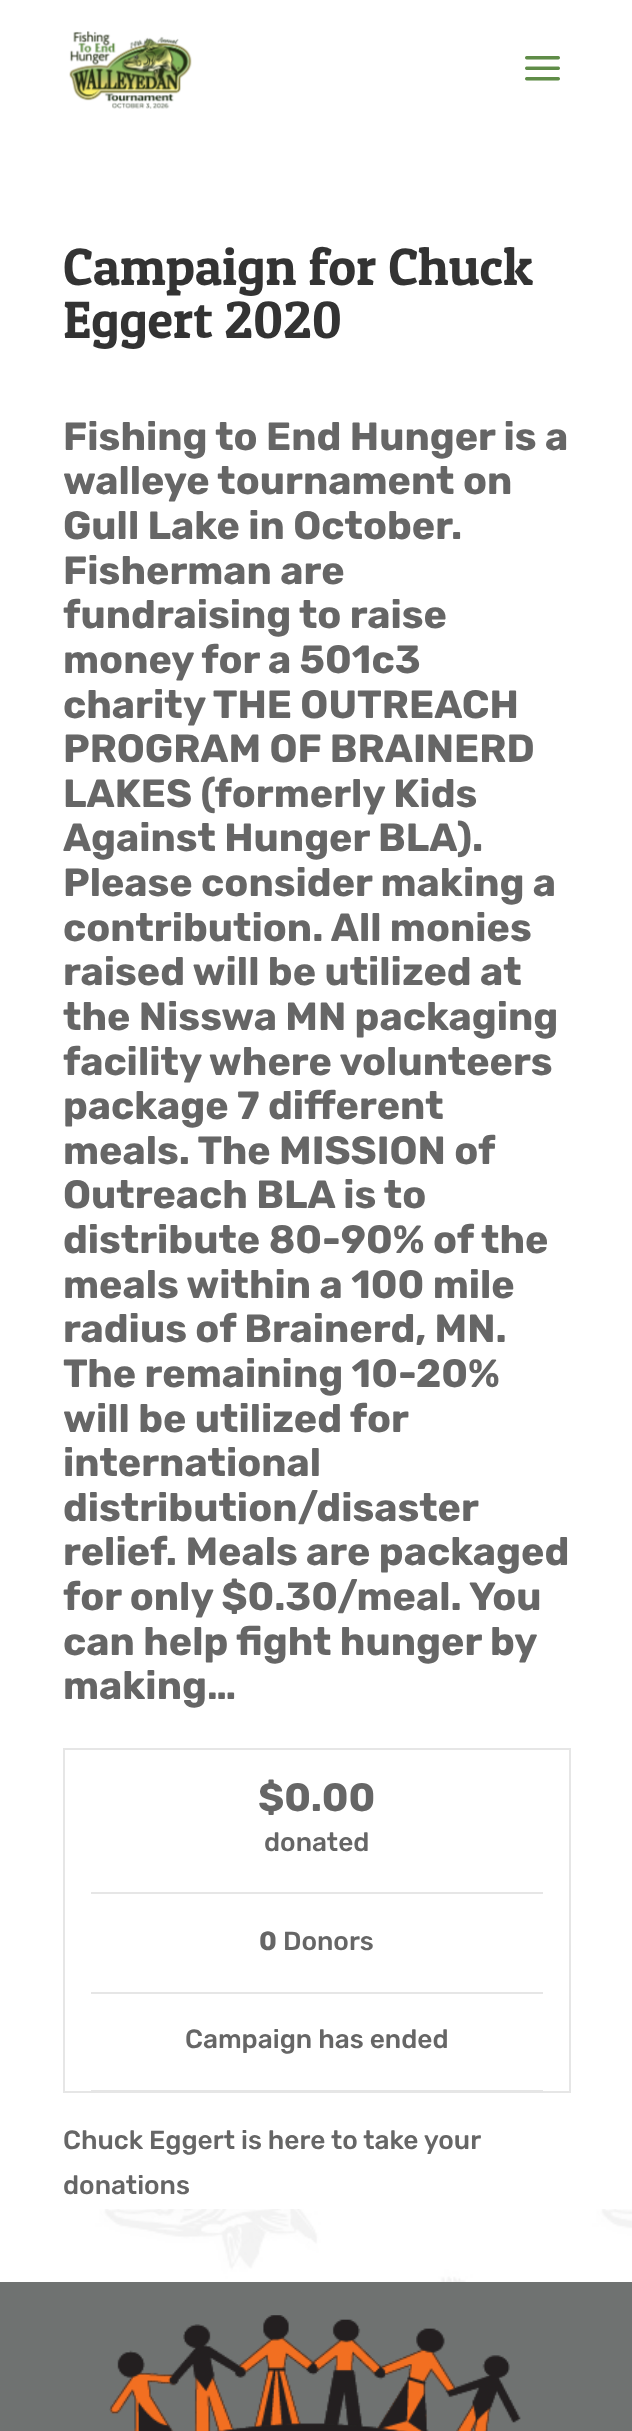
<!DOCTYPE html>
<meta charset="utf-8">
<style>body { margin: 0 } canvas { display: block }</style>
<canvas id="canvas" width="632" height="2431"></canvas>
<img id="img1" src="images/1.png" hidden>
<img id="img2" src="images/2.png" hidden>
<img id="img3" src="images/3.png" hidden>
<img id="img4" src="images/4.png" hidden>
<script>
window.onload = function () {
    const canvas = document.getElementById('canvas');
    const context = canvas.getContext('2d');
    context.miterLimit = 4;
    context.fontKerning = 'normal';

    context.fillStyle = 'rgb(255, 255, 255)';
    context.fillRect(0, 0, 632, 2431);
    context.drawImage(document.getElementById('img1'), 0, 2209, 632, 73);
    context.drawImage(document.getElementById('img2'), 69, 31, 123, 78);
    context.drawImage(document.getElementById('img3'), 525, 56, 35, 25);
    context.strokeStyle = 'rgb(230, 230, 230)';
    context.lineWidth = 2;
    context.strokeRect(64, 1749, 506, 343);
    context.fillStyle = 'rgb(230, 230, 230)';
    context.fillRect(91, 1892, 452, 2);
    context.fillRect(91, 1992, 452, 2);
    context.fillRect(91, 2090, 452, 1);
    context.fillStyle = 'rgb(111, 114, 113)';
    context.fillRect(0, 2282, 632, 149);
    context.drawImage(document.getElementById('img4'), 109, 2315, 412, 116);
    context.font = '52.5px Patua One';
    context.fillStyle = 'rgb(51, 51, 51)';
    context.fillText('Campaign for Chuck', 63, 285);
    context.fillText('Eggert 2020', 63, 338);
    context.font = '300 39.4px Rubik';
    context.fillStyle = 'rgb(102, 102, 102)';
    context.fillText('Fishing to End Hunger is a', 63, 450);
    context.fillText('walleye tournament on', 63, 494);
    context.fillText('Gull Lake in October.', 63, 539);
    context.fillText('Fisherman are', 63, 584);
    context.fillText('fundraising to raise', 63, 628);
    context.fillText('money for a 501c3', 63, 673);
    context.fillText('charity THE OUTREACH', 63, 718);
    context.fillText('PROGRAM OF BRAINERD', 63, 762);
    context.fillText('LAKES (formerly Kids', 63, 807);
    context.fillText('Against Hunger BLA).', 63, 851);
    context.fillText('Please consider making a', 63, 896);
    context.fillText('contribution. All monies', 63, 941);
    context.fillText('raised will be utilized at', 63, 985);
    context.fillText('the Nisswa MN packaging', 63, 1030);
    context.fillText('facility where volunteers', 63, 1075);
    context.fillText('package 7 different', 63, 1119);
    context.fillText('meals. The MISSION of', 63, 1164);
    context.fillText('Outreach BLA is to', 63, 1208);
    context.fillText('distribute 80-90% of the', 63, 1253);
    context.fillText('meals within a 100 mile', 63, 1298);
    context.fillText('radius of Brainerd, MN.', 63, 1342);
    context.fillText('The remaining 10-20%', 63, 1387);
    context.fillText('will be utilized for', 63, 1432);
    context.fillText('international', 63, 1476);
    context.fillText('distribution/disaster', 63, 1521);
    context.fillText('relief. Meals are packaged', 63, 1565);
    context.fillText('for only $0.30/meal. You', 63, 1610);
    context.fillText('can help fight hunger by', 63, 1655);
    context.fillText('making…', 63, 1699);
    context.fillText('$0.00', 258, 1811);
    context.font = '300 26.25px "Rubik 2"';
    context.fillText('donated', 264, 1851);
    context.font = '300 26.25px Rubik';
    context.fillText('0', 259, 1950);
    context.font = '300 26.25px "Rubik 2"';
    context.fillText('Donors', 283, 1950);
    context.fillText('Campaign has ended', 185, 2048);
    context.fillText('Chuck Eggert is here to take your', 63, 2149);
    context.fillText('donations', 63, 2194);
};
</script>
